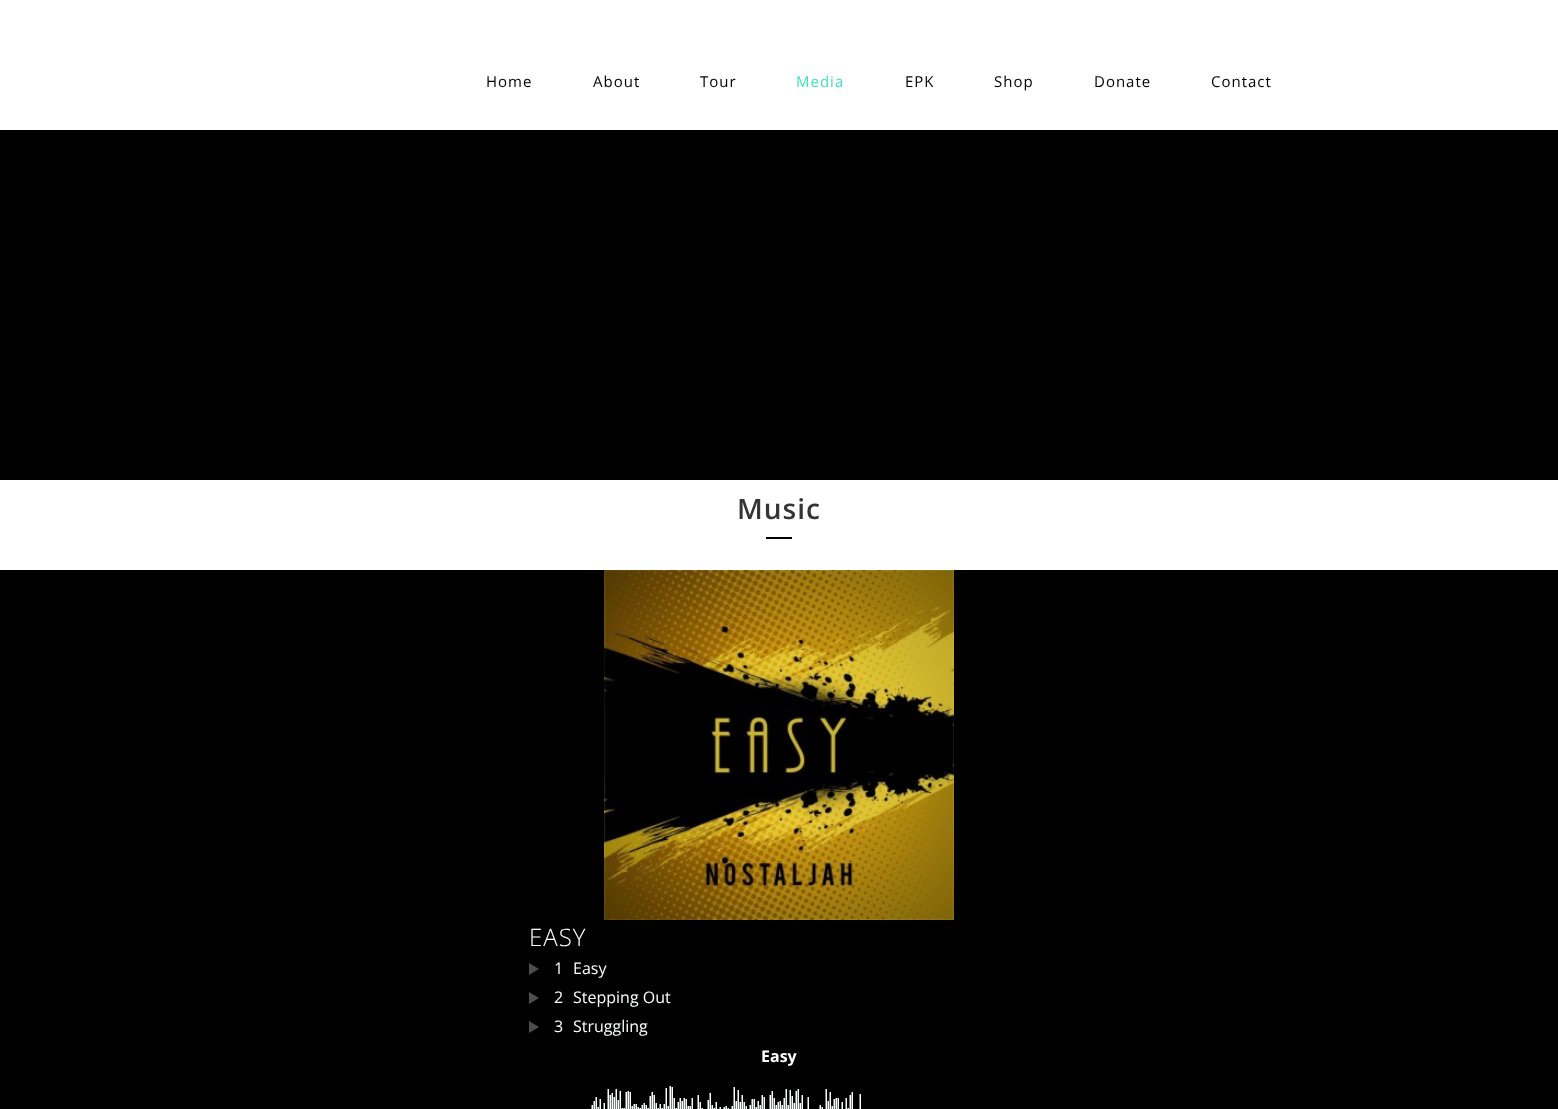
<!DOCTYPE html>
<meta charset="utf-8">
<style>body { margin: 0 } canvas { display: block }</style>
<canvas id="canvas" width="1558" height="1109"></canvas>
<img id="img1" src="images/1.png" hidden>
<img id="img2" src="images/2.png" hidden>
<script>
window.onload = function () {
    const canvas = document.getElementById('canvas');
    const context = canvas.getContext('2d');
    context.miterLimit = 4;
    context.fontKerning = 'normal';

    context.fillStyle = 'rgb(255, 255, 255)';
    context.fillRect(0, 0, 1558, 1109);
    context.fillStyle = 'rgb(0, 0, 0)';
    context.fillRect(0, 130, 1558, 350);
    context.fillRect(766, 537, 26, 2);
    context.fillRect(0, 570, 1558, 539);
    context.drawImage(document.getElementById('img1'), 604, 570, 350, 350);
    context.fillStyle = 'rgb(77, 77, 79)';
    context.beginPath();
    context.moveTo(529, 963);
    context.lineTo(539, 969);
    context.lineTo(529, 975);
    context.closePath();
    context.fill();
    context.beginPath();
    context.moveTo(529, 992);
    context.lineTo(539, 998);
    context.lineTo(529, 1004);
    context.closePath();
    context.fill();
    context.beginPath();
    context.moveTo(529, 1021);
    context.lineTo(539, 1027);
    context.lineTo(529, 1033);
    context.closePath();
    context.fill();
    context.drawImage(document.getElementById('img2'), 591, 1086, 270, 23);
    context.letterSpacing = '1px';
    context.font = '15px Open Sans';
    context.fillStyle = 'rgb(0, 0, 0)';
    context.fillText('Home', 486, 87);
    context.fillText('About', 593, 87);
    context.fillText('Tour', 700, 87);
    context.fillStyle = 'rgb(62, 226, 189)';
    context.fillText('Media', 796, 87);
    context.fillStyle = 'rgb(0, 0, 0)';
    context.fillText('EPK', 905, 87);
    context.fillText('Shop', 994, 87);
    context.fillText('Donate', 1094, 87);
    context.fillText('Contact', 1211, 87);
    context.font = '600 28px Open Sans';
    context.fillStyle = 'rgb(53, 53, 53)';
    context.fillText('Music', 737, 519);
    context.font = '300 24px Open Sans';
    context.fillStyle = 'rgb(252, 255, 254)';
    context.fillText('EASY', 529, 946);
    context.letterSpacing = '0px';
    context.font = '16px Open Sans';
    context.fillText('1', 554, 974);
    context.fillText('Easy', 573, 974);
    context.fillText('2', 554, 1003);
    context.fillText('Stepping Out', 573, 1003);
    context.fillText('3', 554, 1032);
    context.fillText('Struggling', 573, 1032);
    context.font = 'bold 16px Open Sans';
    context.fillText('Easy', 761, 1062);
};
</script>
